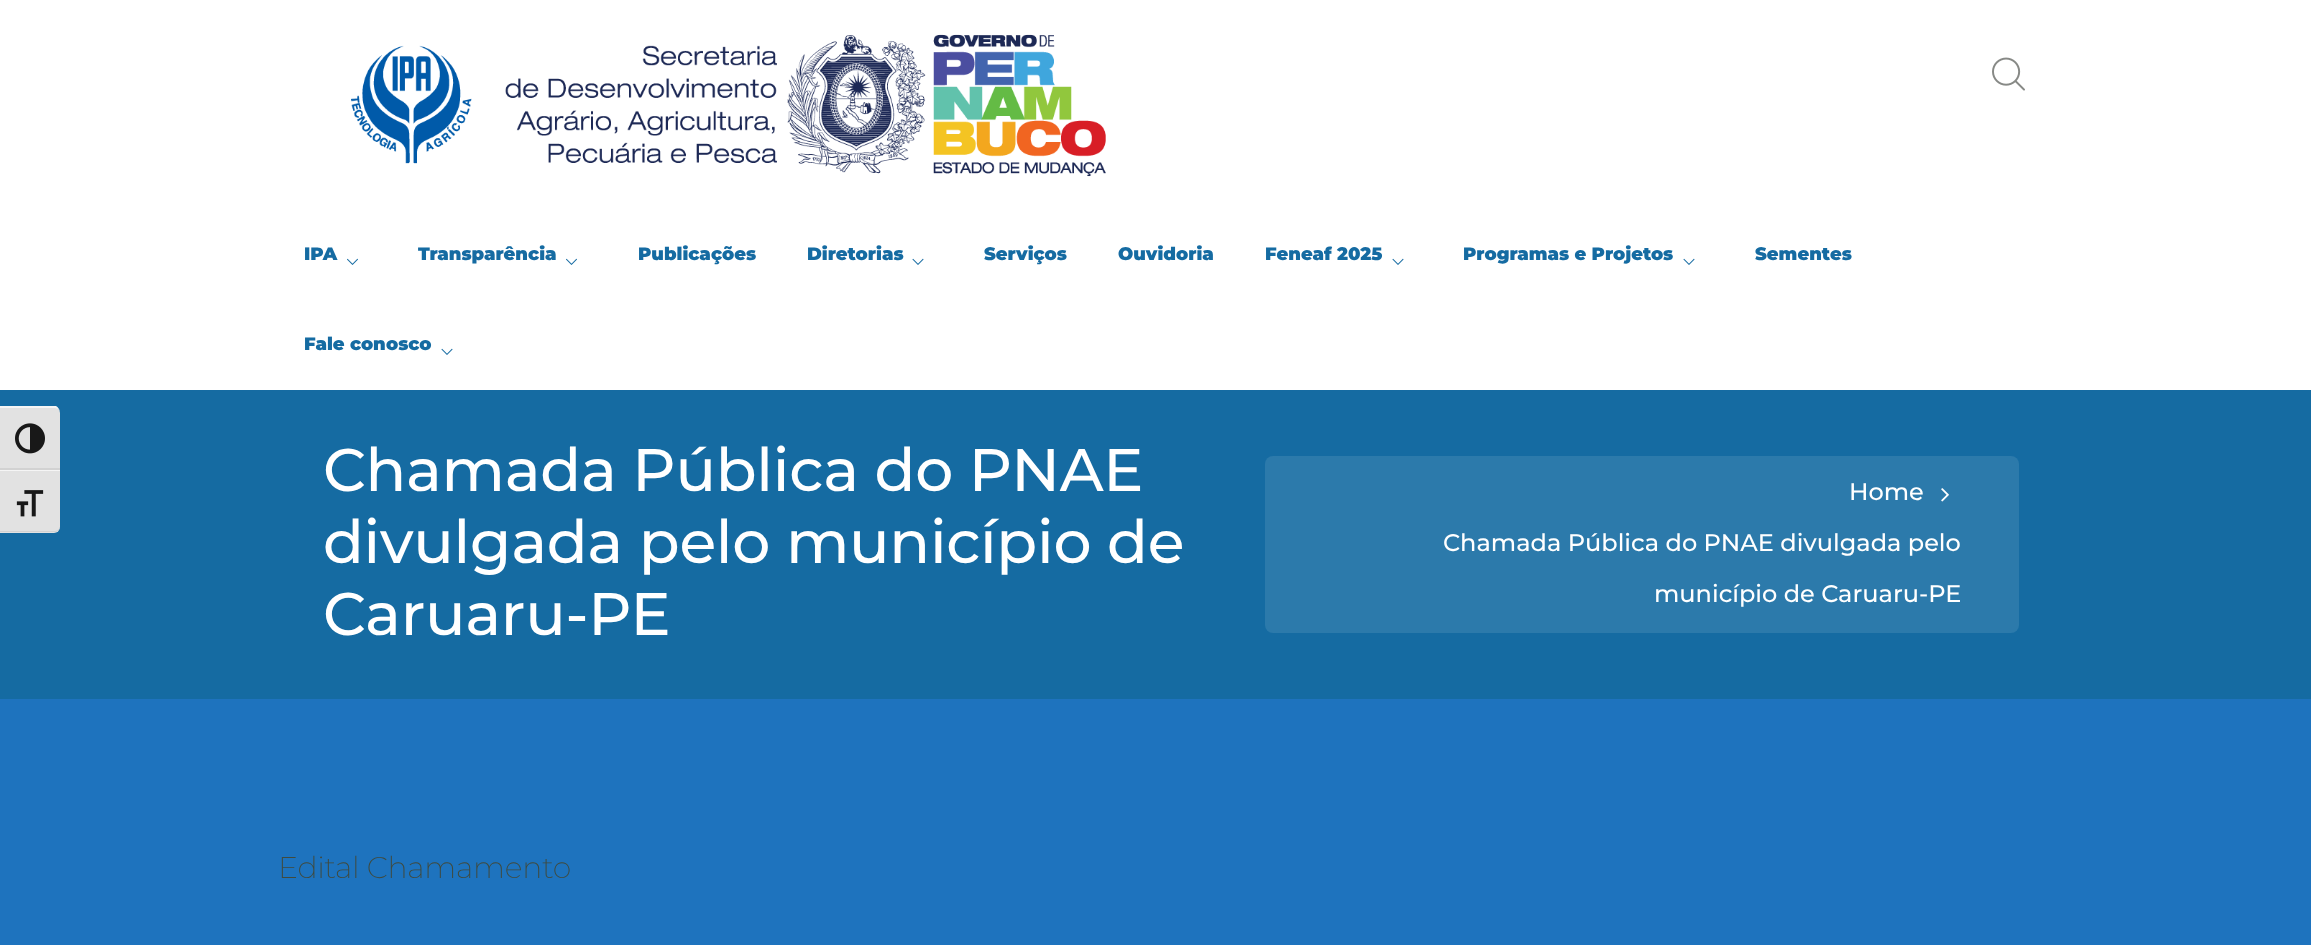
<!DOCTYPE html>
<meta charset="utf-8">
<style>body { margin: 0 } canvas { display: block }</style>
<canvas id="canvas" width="2311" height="945"></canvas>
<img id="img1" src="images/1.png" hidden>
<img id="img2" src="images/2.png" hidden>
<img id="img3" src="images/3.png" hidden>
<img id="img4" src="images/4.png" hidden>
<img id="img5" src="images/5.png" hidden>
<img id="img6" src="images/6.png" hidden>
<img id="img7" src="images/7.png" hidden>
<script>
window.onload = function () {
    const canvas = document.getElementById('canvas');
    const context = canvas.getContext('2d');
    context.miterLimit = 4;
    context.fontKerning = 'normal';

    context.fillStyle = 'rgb(255, 255, 255)';
    context.fillRect(0, 0, 2311, 945);
    context.fillStyle = 'rgb(21, 107, 162)';
    context.fillRect(0, 390, 2311, 309);
    context.fillStyle = 'rgb(226, 226, 226)';
    context.beginPath();
    context.roundRect(0, 407, 60, 63, [0, 6, 0, 0]);
    context.fill();
    context.fillStyle = 'rgb(245, 245, 245)';
    context.beginPath();
    context.moveTo(0, 408);
    context.lineTo(54, 408);
    context.bezierCurveTo(57, 408, 60, 410, 60, 412);
    context.bezierCurveTo(60, 410, 58, 407, 56, 406);
    context.lineTo(0, 406);
    context.closePath();
    context.fill();
    context.fillStyle = 'rgb(210, 210, 210)';
    context.fillRect(0, 468, 60, 2);
    context.drawImage(document.getElementById('img1'), 15, 423, 30, 31);
    context.fillStyle = 'rgb(226, 226, 226)';
    context.beginPath();
    context.roundRect(0, 470, 60, 63, [0, 0, 6, 0]);
    context.fill();
    context.fillStyle = 'rgb(245, 245, 245)';
    context.fillRect(0, 470, 60, 1);
    context.fillStyle = 'rgb(210, 210, 210)';
    context.beginPath();
    context.moveTo(0, 531);
    context.lineTo(0, 532);
    context.lineTo(54, 532);
    context.bezierCurveTo(57, 532, 60, 530, 60, 526);
    context.bezierCurveTo(60, 529, 57, 531, 54, 531);
    context.closePath();
    context.fill();
    context.drawImage(document.getElementById('img2'), 16, 490, 28, 27);
    context.drawImage(document.getElementById('img3'), 351, 34, 755, 143);
    context.drawImage(document.getElementById('img4'), 1992, 57, 33, 34);
    context.drawImage(document.getElementById('img5'), 347, 258, 11, 7);
    context.drawImage(document.getElementById('img5'), 566, 258, 11, 7);
    context.drawImage(document.getElementById('img6'), 912, 258, 12, 7);
    context.drawImage(document.getElementById('img6'), 1392, 258, 12, 7);
    context.drawImage(document.getElementById('img6'), 1683, 258, 12, 7);
    context.drawImage(document.getElementById('img6'), 441, 348, 12, 7);
    context.fillStyle = 'rgb(44, 122, 171)';
    context.beginPath();
    context.roundRect(1265, 456, 754, 177, 8);
    context.fill();
    context.drawImage(document.getElementById('img7'), 1941, 488, 8, 14);
    context.fillStyle = 'rgb(30, 115, 190)';
    context.fillRect(0, 699, 2311, 246);
    context.font = '900 18px Montserrat';
    context.fillStyle = 'rgb(21, 107, 162)';
    context.fillText('IPA', 304, 260);
    context.fillText('Transparência', 418, 260);
    context.fillText('Publicações', 638, 260);
    context.fillText('Diretorias', 807, 260);
    context.fillText('Serviços', 984, 260);
    context.fillText('Ouvidoria', 1118, 260);
    context.fillText('Feneaf 2025', 1265, 260);
    context.fillText('Programas e Projetos', 1463, 260);
    context.fillText('Sementes', 1755, 260);
    context.fillText('Fale conosco', 304, 350);
    context.letterSpacing = '-0.3px';
    context.font = '500 60px Montserrat';
    context.fillStyle = 'rgb(255, 255, 255)';
    context.fillText('Chamada Pública do PNAE', 323, 491);
    context.fillText('divulgada pelo município de', 323, 563);
    context.fillText('Caruaru-PE', 323, 635);
    context.letterSpacing = '0px';
    context.font = '500 24px Montserrat';
    context.fillText('Home', 1849, 500);
    context.fillText('Chamada Pública do PNAE divulgada pelo', 1443, 551);
    context.fillText('município de Caruaru-PE', 1654, 602);
    context.letterSpacing = '-0.3px';
    context.font = '200 30px Montserrat';
    context.fillStyle = 'rgb(64, 74, 61)';
    context.fillText('Edital Chamamento', 278, 878);
};
</script>
